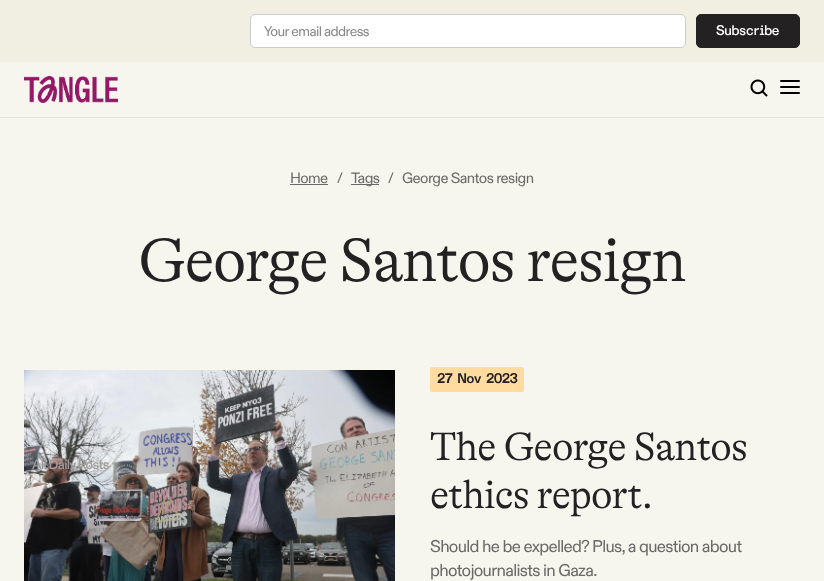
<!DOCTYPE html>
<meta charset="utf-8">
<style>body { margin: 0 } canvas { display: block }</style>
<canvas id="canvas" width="824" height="581"></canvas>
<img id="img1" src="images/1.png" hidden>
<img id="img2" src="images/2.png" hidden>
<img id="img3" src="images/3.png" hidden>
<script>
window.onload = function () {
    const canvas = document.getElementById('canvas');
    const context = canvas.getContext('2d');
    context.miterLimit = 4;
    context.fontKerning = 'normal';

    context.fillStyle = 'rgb(246, 245, 238)';
    context.fillRect(0, 0, 824, 581);
    context.fillStyle = 'rgb(240, 239, 226)';
    context.fillRect(0, 0, 824, 62);
    context.fillStyle = 'rgb(255, 255, 255)';
    context.beginPath();
    context.roundRect(250, 14, 436, 34, 5);
    context.fill();
    context.beginPath();
    context.roundRect(250.5, 14.5, 435, 33, 4.5);
    context.strokeStyle = 'rgba(24, 22, 22, 0.22)';
    context.stroke();
    context.fillStyle = 'rgb(35, 33, 34)';
    context.beginPath();
    context.roundRect(696.5, 14.5, 103, 33, 4.5);
    context.fill();
    context.strokeStyle = 'rgb(35, 33, 34)';
    context.stroke();
    context.fillStyle = 'rgb(227, 227, 227)';
    context.fillRect(0, 117, 824, 1);
    context.drawImage(document.getElementById('img1'), 24, 76, 94, 27);
    context.drawImage(document.getElementById('img2'), 750, 79, 18, 18);
    context.fillStyle = 'rgb(0, 0, 0)';
    context.beginPath();
    context.roundRect(780, 80, 20, 2, 1);
    context.fill();
    context.beginPath();
    context.roundRect(780, 86, 20, 2, 1);
    context.fill();
    context.beginPath();
    context.roundRect(780, 92, 20, 2, 1);
    context.fill();
    context.fillStyle = 'rgb(106, 105, 103)';
    context.fillRect(290, 184, 38, 1);
    context.fillRect(351, 184, 28, 1);
    context.drawImage(document.getElementById('img3'), 24, 370, 371, 211);
    context.fillStyle = 'rgb(255, 219, 159)';
    context.beginPath();
    context.roundRect(430, 367, 94, 25, 2);
    context.fill();
    context.letterSpacing = '-0.6px';
    context.font = '14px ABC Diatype';
    context.fillStyle = 'rgb(136, 135, 133)';
    context.fillText('Your email address', 264, 36);
    context.letterSpacing = '-0.75px';
    context.font = '500 14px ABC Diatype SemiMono';
    context.fillStyle = 'rgb(255, 255, 255)';
    context.fillText('Subscribe', 716, 35);
    context.letterSpacing = '-0.6px';
    context.font = '15px ABC Diatype';
    context.fillStyle = 'rgb(106, 105, 103)';
    context.fillText('Home', 290, 183);
    context.fillText('/', 337, 183);
    context.fillText('Tags', 351, 183);
    context.fillText('/', 388, 183);
    context.fillText('George Santos resign', 402, 183);
    context.letterSpacing = '-1.25px';
    context.font = '300 62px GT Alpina';
    context.fillStyle = 'rgb(35, 33, 34)';
    context.fillText('George Santos resign', 138, 281);
    context.letterSpacing = '-0.6px';
    context.font = '500 13.5px ABC Diatype';
    context.fillStyle = 'rgb(159, 155, 155)';
    context.fillText('All Daily Posts', 32, 469);
    context.font = 'bold 14px ABC Diatype SemiMono';
    context.fillStyle = 'rgb(35, 33, 34)';
    context.fillText('27 Nov 2023', 437, 383);
    context.letterSpacing = '-0.75px';
    context.font = '300 40px GT Alpina';
    context.fillText('The George Santos', 430, 460);
    context.fillText('ethics report.', 430, 508);
    context.letterSpacing = '-0.7px';
    context.font = '17px ABC Diatype';
    context.fillStyle = 'rgb(106, 105, 103)';
    context.fillText('Should he be expelled? Plus, a question about', 430, 552);
    context.fillText('photojournalists in Gaza.', 430, 576);
};
</script>
